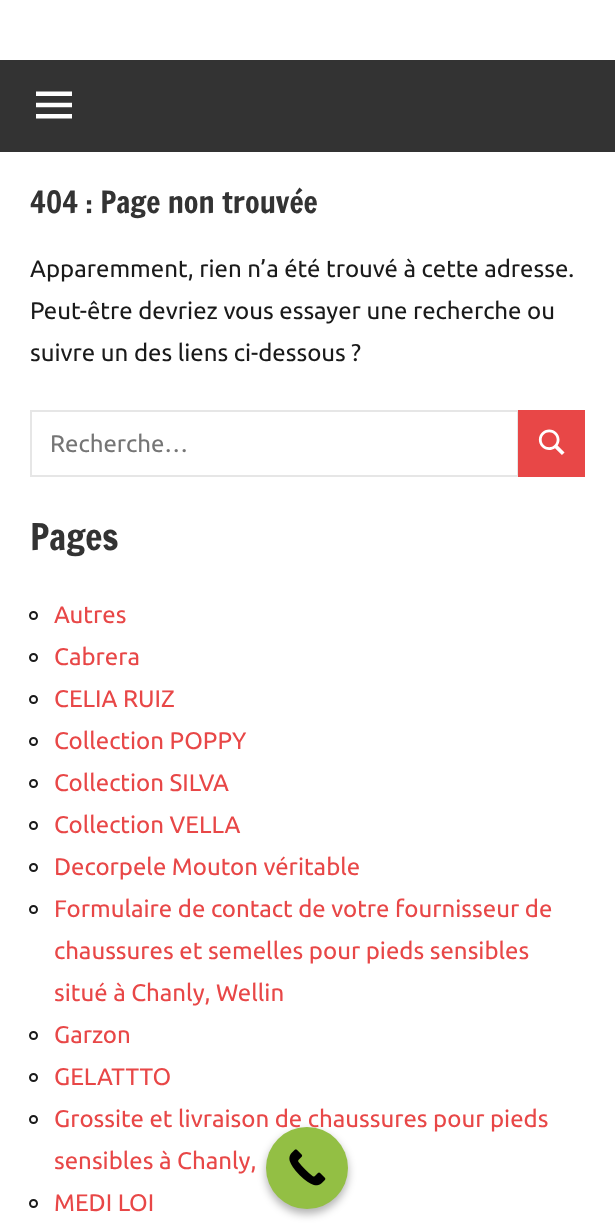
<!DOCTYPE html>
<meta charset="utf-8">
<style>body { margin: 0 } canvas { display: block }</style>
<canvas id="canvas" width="615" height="1231"></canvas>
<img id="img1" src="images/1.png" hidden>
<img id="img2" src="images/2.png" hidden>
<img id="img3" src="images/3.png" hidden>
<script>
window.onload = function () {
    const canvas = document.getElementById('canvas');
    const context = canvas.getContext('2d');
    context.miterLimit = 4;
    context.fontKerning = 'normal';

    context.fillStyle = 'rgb(255, 255, 255)';
    context.fillRect(0, 0, 615, 1231);
    context.fillStyle = 'rgb(51, 51, 51)';
    context.fillRect(0, 60, 615, 92);
    context.drawImage(document.getElementById('img1'), 36, 91, 36, 28);
    context.strokeStyle = 'rgb(230, 230, 230)';
    context.lineWidth = 2;
    context.strokeRect(31, 411, 487, 65);
    context.fillStyle = 'rgb(232, 71, 71)';
    context.fillRect(518, 410, 67, 67);
    context.drawImage(document.getElementById('img2'), 538, 429, 27, 26);
    context.beginPath();
    context.arc(33.5, 615.5, 3.5, 0, 2 * Math.PI);
    context.strokeStyle = 'rgb(26, 26, 26)';
    context.stroke();
    context.beginPath();
    context.arc(33.5, 657.5, 3.5, 0, 2 * Math.PI);
    context.stroke();
    context.beginPath();
    context.arc(33.5, 699.5, 3.5, 0, 2 * Math.PI);
    context.stroke();
    context.beginPath();
    context.arc(33.5, 741.5, 3.5, 0, 2 * Math.PI);
    context.stroke();
    context.beginPath();
    context.arc(33.5, 783.5, 3.5, 0, 2 * Math.PI);
    context.stroke();
    context.beginPath();
    context.arc(33.5, 825.5, 3.5, 0, 2 * Math.PI);
    context.stroke();
    context.beginPath();
    context.arc(33.5, 867.5, 3.5, 0, 2 * Math.PI);
    context.stroke();
    context.beginPath();
    context.arc(33.5, 909.5, 3.5, 0, 2 * Math.PI);
    context.stroke();
    context.beginPath();
    context.arc(33.5, 1035.5, 3.5, 0, 2 * Math.PI);
    context.stroke();
    context.beginPath();
    context.arc(33.5, 1077.5, 3.5, 0, 2 * Math.PI);
    context.stroke();
    context.beginPath();
    context.arc(33.5, 1119.5, 3.5, 0, 2 * Math.PI);
    context.stroke();
    context.beginPath();
    context.arc(33.5, 1203.5, 3.5, 0, 2 * Math.PI);
    context.stroke();
    context.fillStyle = 'rgba(0, 0, 0, 0.3)';
    context.filter = 'blur(4.5px)';
    context.beginPath();
    context.roundRect(266, 1131, 82, 83, 41);
    context.fill();
    context.filter = 'none';
    context.font = '30px Francois One';
    context.fillStyle = 'rgb(51, 51, 51)';
    context.fillText('404 : Page non trouvée', 30, 213);
    context.font = '24px Ubuntu';
    context.fillStyle = 'rgb(26, 26, 26)';
    context.fillText('Apparemment, rien n’a été trouvé à cette adresse.', 30, 277);
    context.fillText('Peut-être devriez vous essayer une recherche ou', 30, 319);
    context.fillText('suivre un des liens ci-dessous ?', 30, 361);
    context.fillStyle = 'rgb(117, 117, 117)';
    context.fillText('Recherche…', 50, 452);
    context.font = '36px Francois One';
    context.fillStyle = 'rgb(51, 51, 51)';
    context.fillText('Pages', 30, 550);
    context.font = '24px Ubuntu';
    context.fillStyle = 'rgb(232, 71, 71)';
    context.fillText('Autres', 54, 623);
    context.fillText('Cabrera', 54, 665);
    context.fillText('CELIA RUIZ', 54, 707);
    context.fillText('Collection POPPY', 54, 749);
    context.fillText('Collection SILVA', 54, 791);
    context.fillText('Collection VELLA', 54, 833);
    context.fillText('Decorpele Mouton véritable', 54, 875);
    context.fillText('Formulaire de contact de votre fournisseur de', 54, 917);
    context.fillText('chaussures et semelles pour pieds sensibles', 54, 959);
    context.fillText('situé à Chanly, Wellin', 54, 1001);
    context.fillText('Garzon', 54, 1043);
    context.fillText('GELATTTO', 54, 1085);
    context.fillText('Grossite et livraison de chaussures pour pieds', 54, 1127);
    context.fillText('sensibles à Chanly,', 54, 1169);
    context.fillText('MEDI LOI', 54, 1211);
    context.fillStyle = 'rgb(147, 191, 68)';
    context.beginPath();
    context.arc(307, 1168, 41, 0, 2 * Math.PI);
    context.fill();
    context.drawImage(document.getElementById('img3'), 289, 1149, 37, 37);
};
</script>
